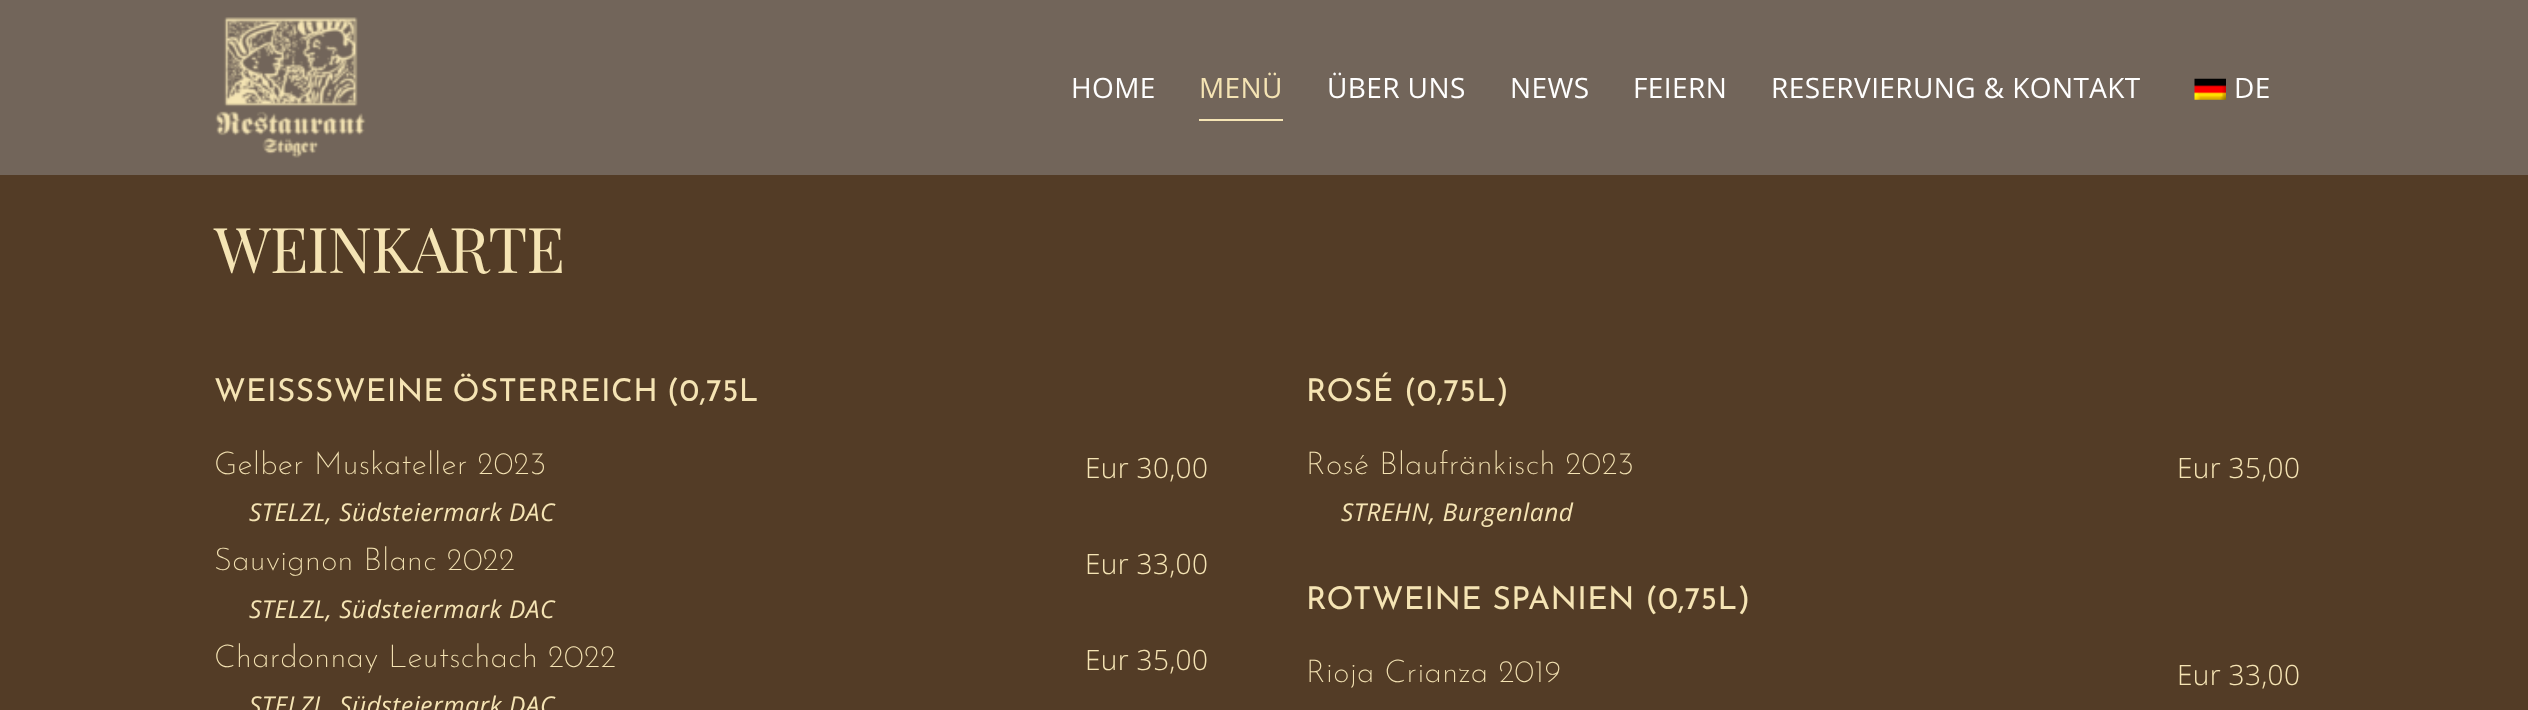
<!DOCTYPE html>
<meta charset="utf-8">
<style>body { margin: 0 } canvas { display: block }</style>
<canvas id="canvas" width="2528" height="710"></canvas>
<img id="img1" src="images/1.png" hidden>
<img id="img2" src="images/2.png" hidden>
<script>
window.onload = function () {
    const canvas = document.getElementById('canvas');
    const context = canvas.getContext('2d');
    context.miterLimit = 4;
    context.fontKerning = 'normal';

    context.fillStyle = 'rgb(83, 60, 38)';
    context.fillRect(0, 0, 2528, 710);
    context.fillStyle = 'rgb(114, 101, 90)';
    context.fillRect(0, 0, 2528, 175);
    context.drawImage(document.getElementById('img1'), 215, 17, 151, 141);
    context.fillStyle = 'rgb(245, 228, 180)';
    context.fillRect(1199, 119, 84, 2);
    context.drawImage(document.getElementById('img2'), 2194, 78, 32, 22);
    context.letterSpacing = '0.4px';
    context.font = '28px Open Sans';
    context.fillStyle = 'rgb(255, 255, 255)';
    context.fillText('HOME', 1071, 98);
    context.fillStyle = 'rgb(245, 228, 180)';
    context.fillText('MENÜ', 1199, 98);
    context.fillStyle = 'rgb(255, 255, 255)';
    context.fillText('ÜBER UNS', 1327, 98);
    context.fillText('NEWS', 1510, 98);
    context.fillText('FEIERN', 1633, 98);
    context.fillText('RESERVIERUNG & KONTAKT', 1771, 98);
    context.fillText('DE', 2234, 98);
    context.letterSpacing = '-1px';
    context.font = '63px Playfair Display';
    context.fillStyle = 'rgb(245, 228, 180)';
    context.fillText('WEINKARTE', 214, 273);
    context.letterSpacing = '0.35px';
    context.font = '31.5px Josefin Sans';
    context.fillText('WEISS', 214, 401);
    context.wordSpacing = '-2px';
    context.fillText('SWEINE ÖSTERREICH (0,75L', 315, 401);
    context.wordSpacing = '0px';
    context.font = '200 31.5px Josefin Sans';
    context.fillText('Gelber Muskateller 2023', 214, 474);
    context.font = '300 28px Open Sans';
    context.fillText('Eur 30,00', 1085, 478);
    context.letterSpacing = '0.5px';
    context.font = 'italic 24.5px Open Sans';
    context.fillText('STELZL, Südsteiermark DAC', 249, 521);
    context.letterSpacing = '0.35px';
    context.font = '200 31.5px Josefin Sans';
    context.fillText('Sauvignon Blanc 2022', 214, 570);
    context.font = '300 28px Open Sans';
    context.fillText('Eur 33,00', 1085, 574);
    context.letterSpacing = '0.5px';
    context.font = 'italic 24.5px Open Sans';
    context.fillText('STELZL, Südsteiermark DAC', 249, 618);
    context.letterSpacing = '0.35px';
    context.font = '200 31.5px Josefin Sans';
    context.fillText('Chardonnay Leutschach 2022', 214, 667);
    context.font = '300 28px Open Sans';
    context.fillText('Eur 35,00', 1085, 670);
    context.letterSpacing = '0.5px';
    context.font = 'italic 24.5px Open Sans';
    context.fillText('STELZL, Südsteiermark DAC', 249, 714);
    context.letterSpacing = '0.35px';
    context.font = '31.5px Josefin Sans';
    context.fillText('ROSÉ (0,75L)', 1306, 401);
    context.font = '200 31.5px Josefin Sans';
    context.fillText('Rosé Blaufränkisch 2023', 1306, 474);
    context.font = '300 28px Open Sans';
    context.fillText('Eur 35,00', 2177, 478);
    context.letterSpacing = '0.5px';
    context.font = 'italic 24.5px Open Sans';
    context.fillText('STREHN, Burgenland', 1341, 521);
    context.letterSpacing = '0.35px';
    context.font = '31.5px Josefin Sans';
    context.fillText('ROTWEINE SPANIEN (0,75L)', 1306, 609);
    context.font = '200 31.5px Josefin Sans';
    context.fillText('Rioja Crianza 2019', 1306, 682);
    context.font = '300 28px Open Sans';
    context.fillText('Eur 33,00', 2177, 685);
};
</script>
